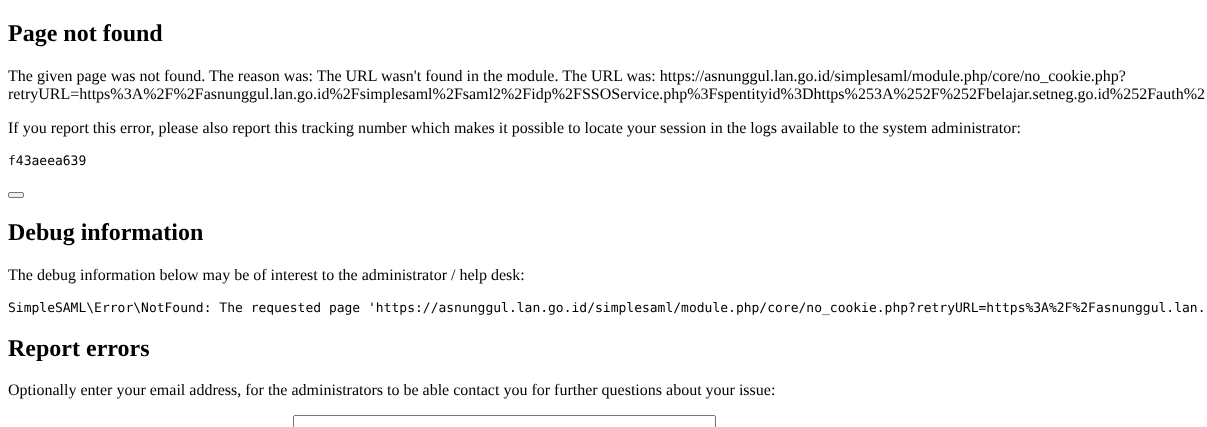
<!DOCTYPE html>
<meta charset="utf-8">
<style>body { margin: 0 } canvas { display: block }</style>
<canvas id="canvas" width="1207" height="427"></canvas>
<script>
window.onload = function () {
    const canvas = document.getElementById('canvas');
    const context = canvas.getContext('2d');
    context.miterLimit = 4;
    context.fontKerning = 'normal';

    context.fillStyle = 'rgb(255, 255, 255)';
    context.fillRect(0, 0, 1207, 427);
    context.fillStyle = 'rgb(239, 239, 239)';
    context.beginPath();
    context.roundRect(8.5, 192.5, 15, 5, 1.5);
    context.fill();
    context.strokeStyle = 'rgb(118, 118, 118)';
    context.stroke();
    context.beginPath();
    context.roundRect(293.5, 415.5, 422, 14, 1.5);
    context.stroke();
    context.font = 'bold 24px Liberation Serif';
    context.fillStyle = 'rgb(0, 0, 0)';
    context.fillText('Page not found', 8, 41);
    context.font = '16px Liberation Serif';
    context.fillText('The given page was not found. The reason was: The URL wasn\'t found in the module. The URL was: https://asnunggul.lan.go.id/simplesaml/module.php/core/no_cookie.php?', 8, 81);
    context.fillText('retryURL=https%3A%2F%2Fasnunggul.lan.go.id%2Fsimplesaml%2Fsaml2%2Fidp%2FSSOService.php%3Fspentityid%3Dhttps%253A%252F%252Fbelajar.setneg.go.id%252Fauth%2', 8, 99);
    context.fillText('If you report this error, please also report this tracking number which makes it possible to locate your session in the logs available to the system administrator:', 8, 133);
    context.font = '13px DejaVu Sans Mono';
    context.fillText('f43aeea639', 8, 165);
    context.font = 'bold 24px Liberation Serif';
    context.fillText('Debug information', 8, 240);
    context.font = '16px Liberation Serif';
    context.fillText('The debug information below may be of interest to the administrator / help desk:', 8, 280);
    context.font = '13px DejaVu Sans Mono';
    context.fillText('SimpleSAML\\Error\\NotFound: The requested page \'https://asnunggul.lan.go.id/simplesaml/module.php/core/no_cookie.php?retryURL=https%3A%2F%2Fasnunggul.lan.', 8, 312);
    context.font = 'bold 24px Liberation Serif';
    context.fillText('Report errors', 8, 356);
    context.font = '16px Liberation Serif';
    context.fillText('Optionally enter your email address, for the administrators to be able contact you for further questions about your issue:', 8, 395);
};
</script>
